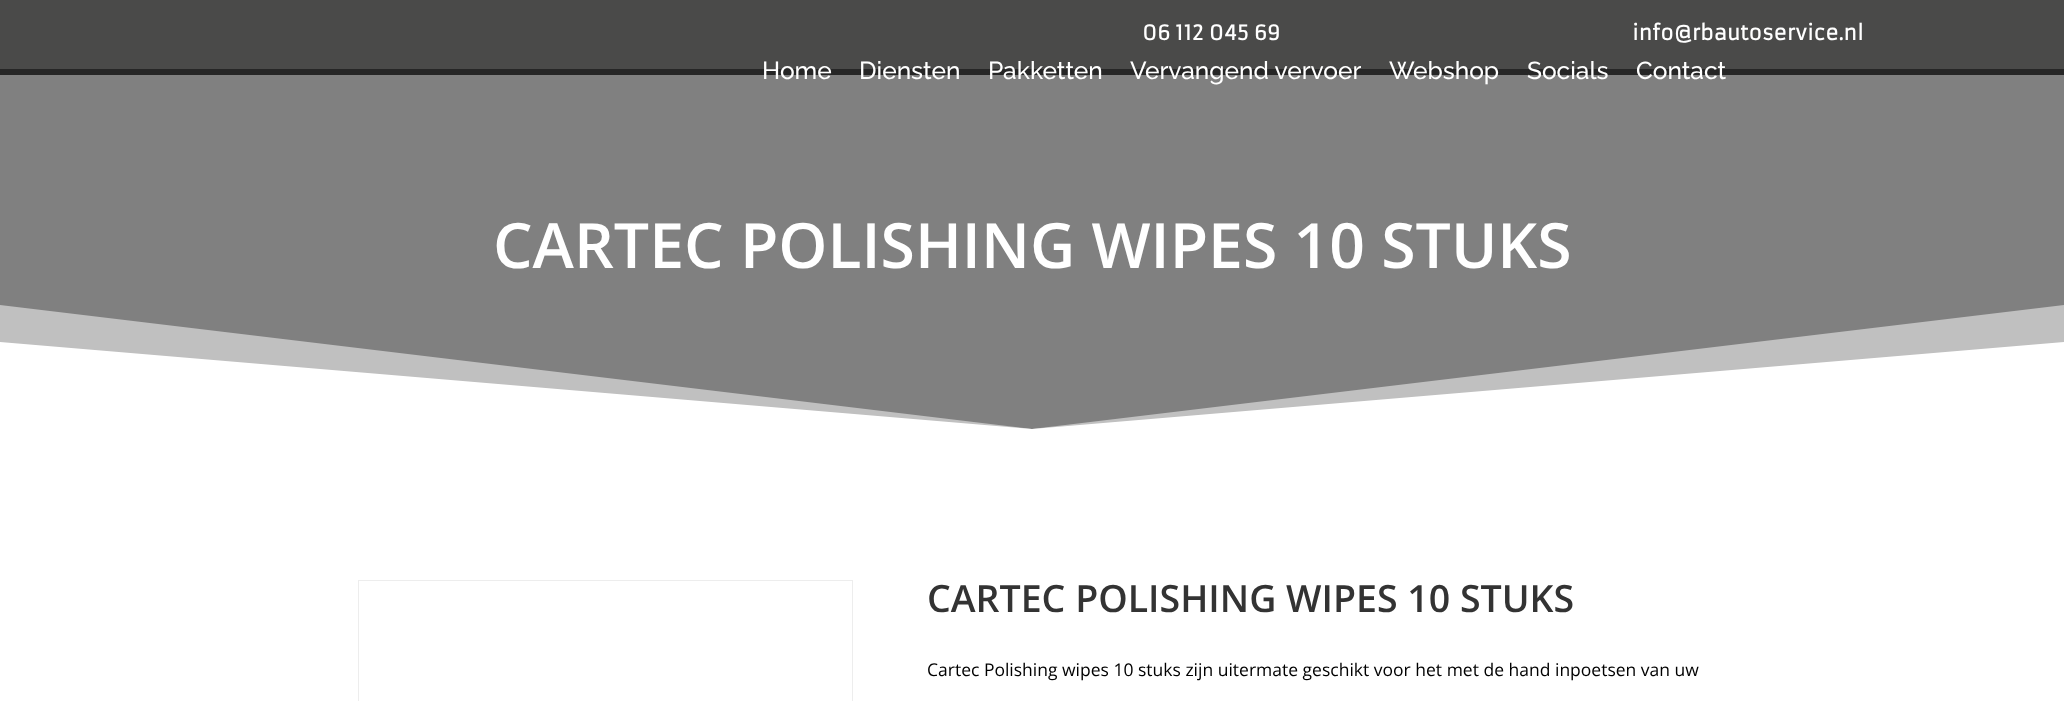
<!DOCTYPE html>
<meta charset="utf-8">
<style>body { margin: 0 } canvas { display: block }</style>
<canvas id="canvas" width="2064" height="701"></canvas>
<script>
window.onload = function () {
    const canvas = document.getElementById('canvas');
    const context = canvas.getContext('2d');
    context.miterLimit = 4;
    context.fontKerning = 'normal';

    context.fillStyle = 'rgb(255, 255, 255)';
    context.fillRect(0, 0, 2064, 701);
    context.fillStyle = 'rgb(74, 74, 73)';
    context.fillRect(0, 0, 2064, 69);
    context.fillStyle = 'rgb(38, 38, 38)';
    context.fillRect(0, 69, 2064, 6);
    context.fillStyle = 'rgb(128, 128, 128)';
    context.fillRect(0, 75, 2064, 354);
    context.fillStyle = 'rgba(255, 255, 255, 0.5)';
    context.beginPath();
    context.moveTo(1032, 429);
    context.lineTo(0, 305);
    context.lineTo(0, 430);
    context.lineTo(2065, 430);
    context.lineTo(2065, 305);
    context.closePath();
    context.fill();
    context.fillStyle = 'rgb(255, 255, 255)';
    context.beginPath();
    context.moveTo(1032, 429);
    context.lineTo(0, 342);
    context.lineTo(0, 430);
    context.lineTo(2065, 430);
    context.lineTo(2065, 342);
    context.closePath();
    context.fill();
    context.strokeStyle = 'rgb(237, 237, 237)';
    context.strokeRect(358.5, 580.5, 494, 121);
    context.font = 'bold 20px Armata';
    context.fillText('06 112 045 69', 1142, 40);
    context.fillText('info@rbautoservice.nl', 1632, 40);
    context.font = '500 24.5px Raleway';
    context.fillText('Home', 762, 79);
    context.fillText('Diensten', 859, 79);
    context.fillText('Pakketten', 988, 79);
    context.fillText('Vervangend vervoer', 1130, 79);
    context.fillText('Webshop', 1389, 79);
    context.fillText('Socials', 1527, 79);
    context.fillText('Contact', 1636, 79);
    context.font = '600 62.5px Open Sans';
    context.fillText('CARTEC POLISHING WIPES 10 STUKS', 493, 268);
    context.font = '600 37.5px Open Sans';
    context.fillStyle = 'rgb(51, 51, 51)';
    context.fillText('CARTEC POLISHING WIPES 10 STUKS', 927, 612);
    context.font = '17.5px Open Sans';
    context.fillStyle = 'rgb(0, 0, 0)';
    context.fillText('Cartec Polishing wipes 10 stuks zijn uitermate geschikt voor het met de hand inpoetsen van uw', 927, 676);
};
</script>
